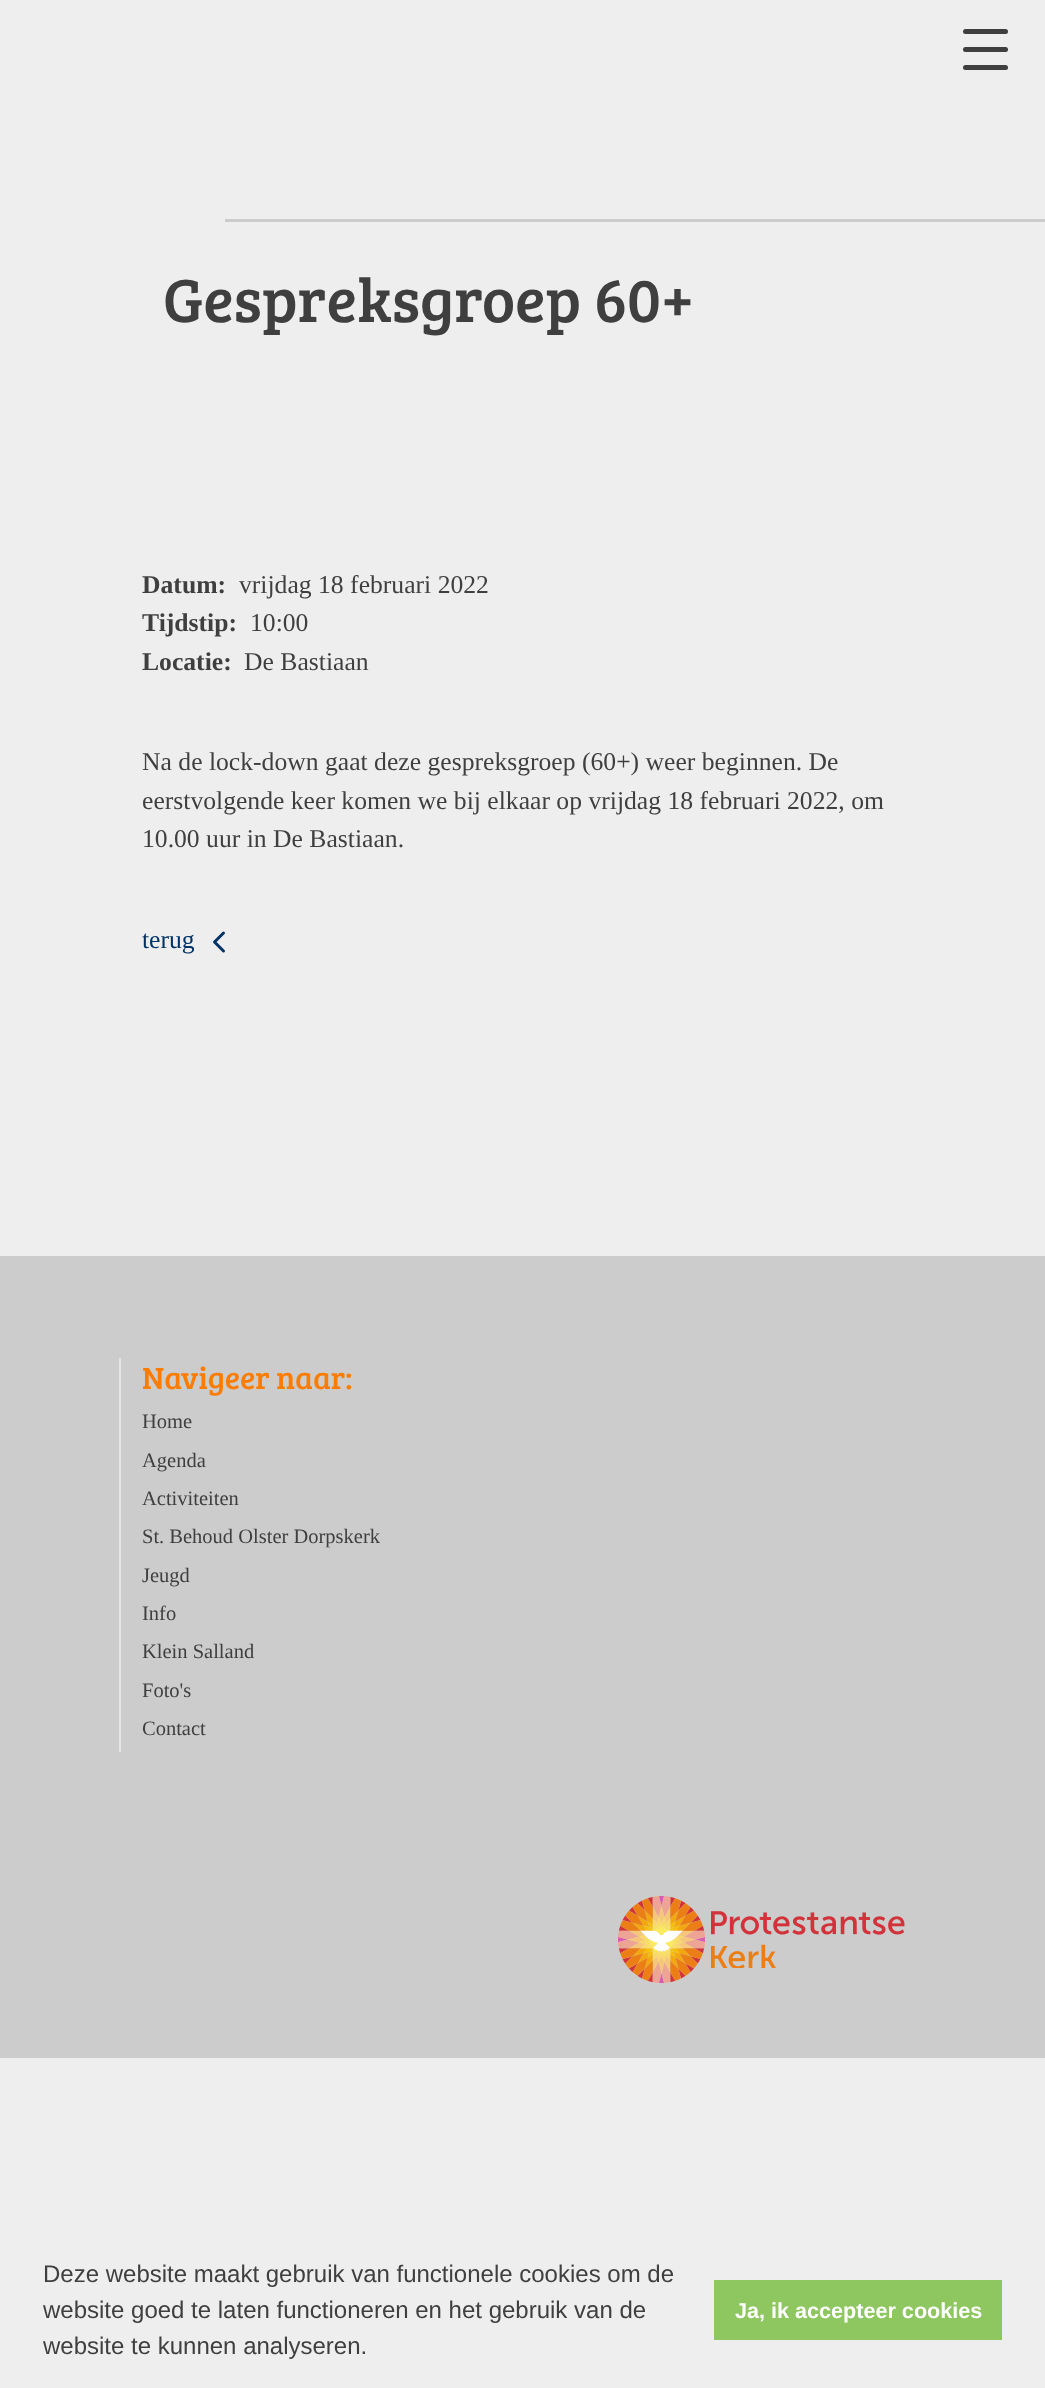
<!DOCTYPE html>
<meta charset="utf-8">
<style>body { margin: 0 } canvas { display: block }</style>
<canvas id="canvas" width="1045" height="2388"></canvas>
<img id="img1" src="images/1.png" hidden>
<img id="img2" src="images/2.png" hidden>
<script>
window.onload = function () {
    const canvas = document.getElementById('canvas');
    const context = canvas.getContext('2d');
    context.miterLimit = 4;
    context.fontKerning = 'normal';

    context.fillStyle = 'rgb(238, 238, 238)';
    context.fillRect(0, 0, 1045, 2388);
    context.fillStyle = 'rgb(63, 63, 63)';
    context.beginPath();
    context.roundRect(963, 29, 45, 5, 2.5);
    context.fill();
    context.beginPath();
    context.roundRect(963, 47, 45, 5, 2.5);
    context.fill();
    context.beginPath();
    context.roundRect(963, 65, 45, 5, 2.5);
    context.fill();
    context.fillStyle = 'rgb(204, 204, 204)';
    context.fillRect(225, 219, 820, 3);
    context.beginPath();
    context.moveTo(223.5, 951);
    context.lineTo(214.5, 942);
    context.lineTo(223.5, 933);
    context.strokeStyle = 'rgb(0, 51, 102)';
    context.lineWidth = 3;
    context.lineCap = 'round';
    context.lineJoin = 'round';
    context.stroke();
    context.fillRect(0, 1256, 1045, 802);
    context.fillStyle = 'rgb(230, 229, 229)';
    context.fillRect(119, 1358, 2, 394);
    context.drawImage(document.getElementById('img1'), 618, 1896, 87, 87);
    context.drawImage(document.getElementById('img2'), 711, 1911, 194, 57);
    context.fillStyle = 'rgb(142, 199, 96)';
    context.fillRect(714, 2280, 288, 60);
    context.font = '62.75px Bree Serif';
    context.fillStyle = 'rgb(63, 63, 63)';
    context.fillText('Gespreksgroep 60+', 163, 322);
    context.font = 'bold 25.65px Liberation Serif';
    context.fillText('Datum:', 142, 593);
    context.font = '25.65px Liberation Serif';
    context.fillText('vrijdag 18 februari 2022', 239, 593);
    context.font = 'bold 25.65px Liberation Serif';
    context.fillText('Tijdstip:', 142, 631);
    context.font = '25.65px Liberation Serif';
    context.fillText('10:00', 250, 631);
    context.font = 'bold 25.65px Liberation Serif';
    context.fillText('Locatie:', 142, 670);
    context.font = '25.65px Liberation Serif';
    context.fillText('De Bastiaan', 244, 670);
    context.fillText('Na de lock-down gaat deze gespreksgroep (60+) weer beginnen. De', 142, 770);
    context.fillText('eerstvolgende keer komen we bij elkaar op vrijdag 18 februari 2022, om', 142, 809);
    context.fillText('10.00 uur in De Bastiaan.', 142, 847);
    context.fillStyle = 'rgb(0, 51, 102)';
    context.fillText('terug', 142, 948);
    context.font = '31.5px Bree Serif';
    context.fillStyle = 'rgb(250, 124, 0)';
    context.fillText('Navigeer naar:', 142, 1389);
    context.font = '20.5px Liberation Serif';
    context.fillStyle = 'rgb(63, 63, 63)';
    context.fillText('Home', 142, 1428);
    context.fillText('Agenda', 142, 1467);
    context.fillText('Activiteiten', 142, 1505);
    context.fillText('St. Behoud Olster Dorpskerk', 142, 1543);
    context.fillText('Jeugd', 142, 1582);
    context.fillText('Info', 142, 1620);
    context.fillText('Klein Salland', 142, 1658);
    context.fillText('Foto\'s', 142, 1697);
    context.fillText('Contact', 142, 1735);
    context.font = '24px Liberation Sans';
    context.fillText('Deze website maakt gebruik van functionele cookies om de', 43, 2282);
    context.fillText('website goed te laten functioneren en het gebruik van de', 43, 2318);
    context.fillText('website te kunnen analyseren.', 43, 2354);
    context.font = 'bold 21.6px Liberation Sans';
    context.fillStyle = 'rgb(255, 255, 255)';
    context.fillText('Ja, ik accepteer cookies', 735, 2318);
};
</script>
